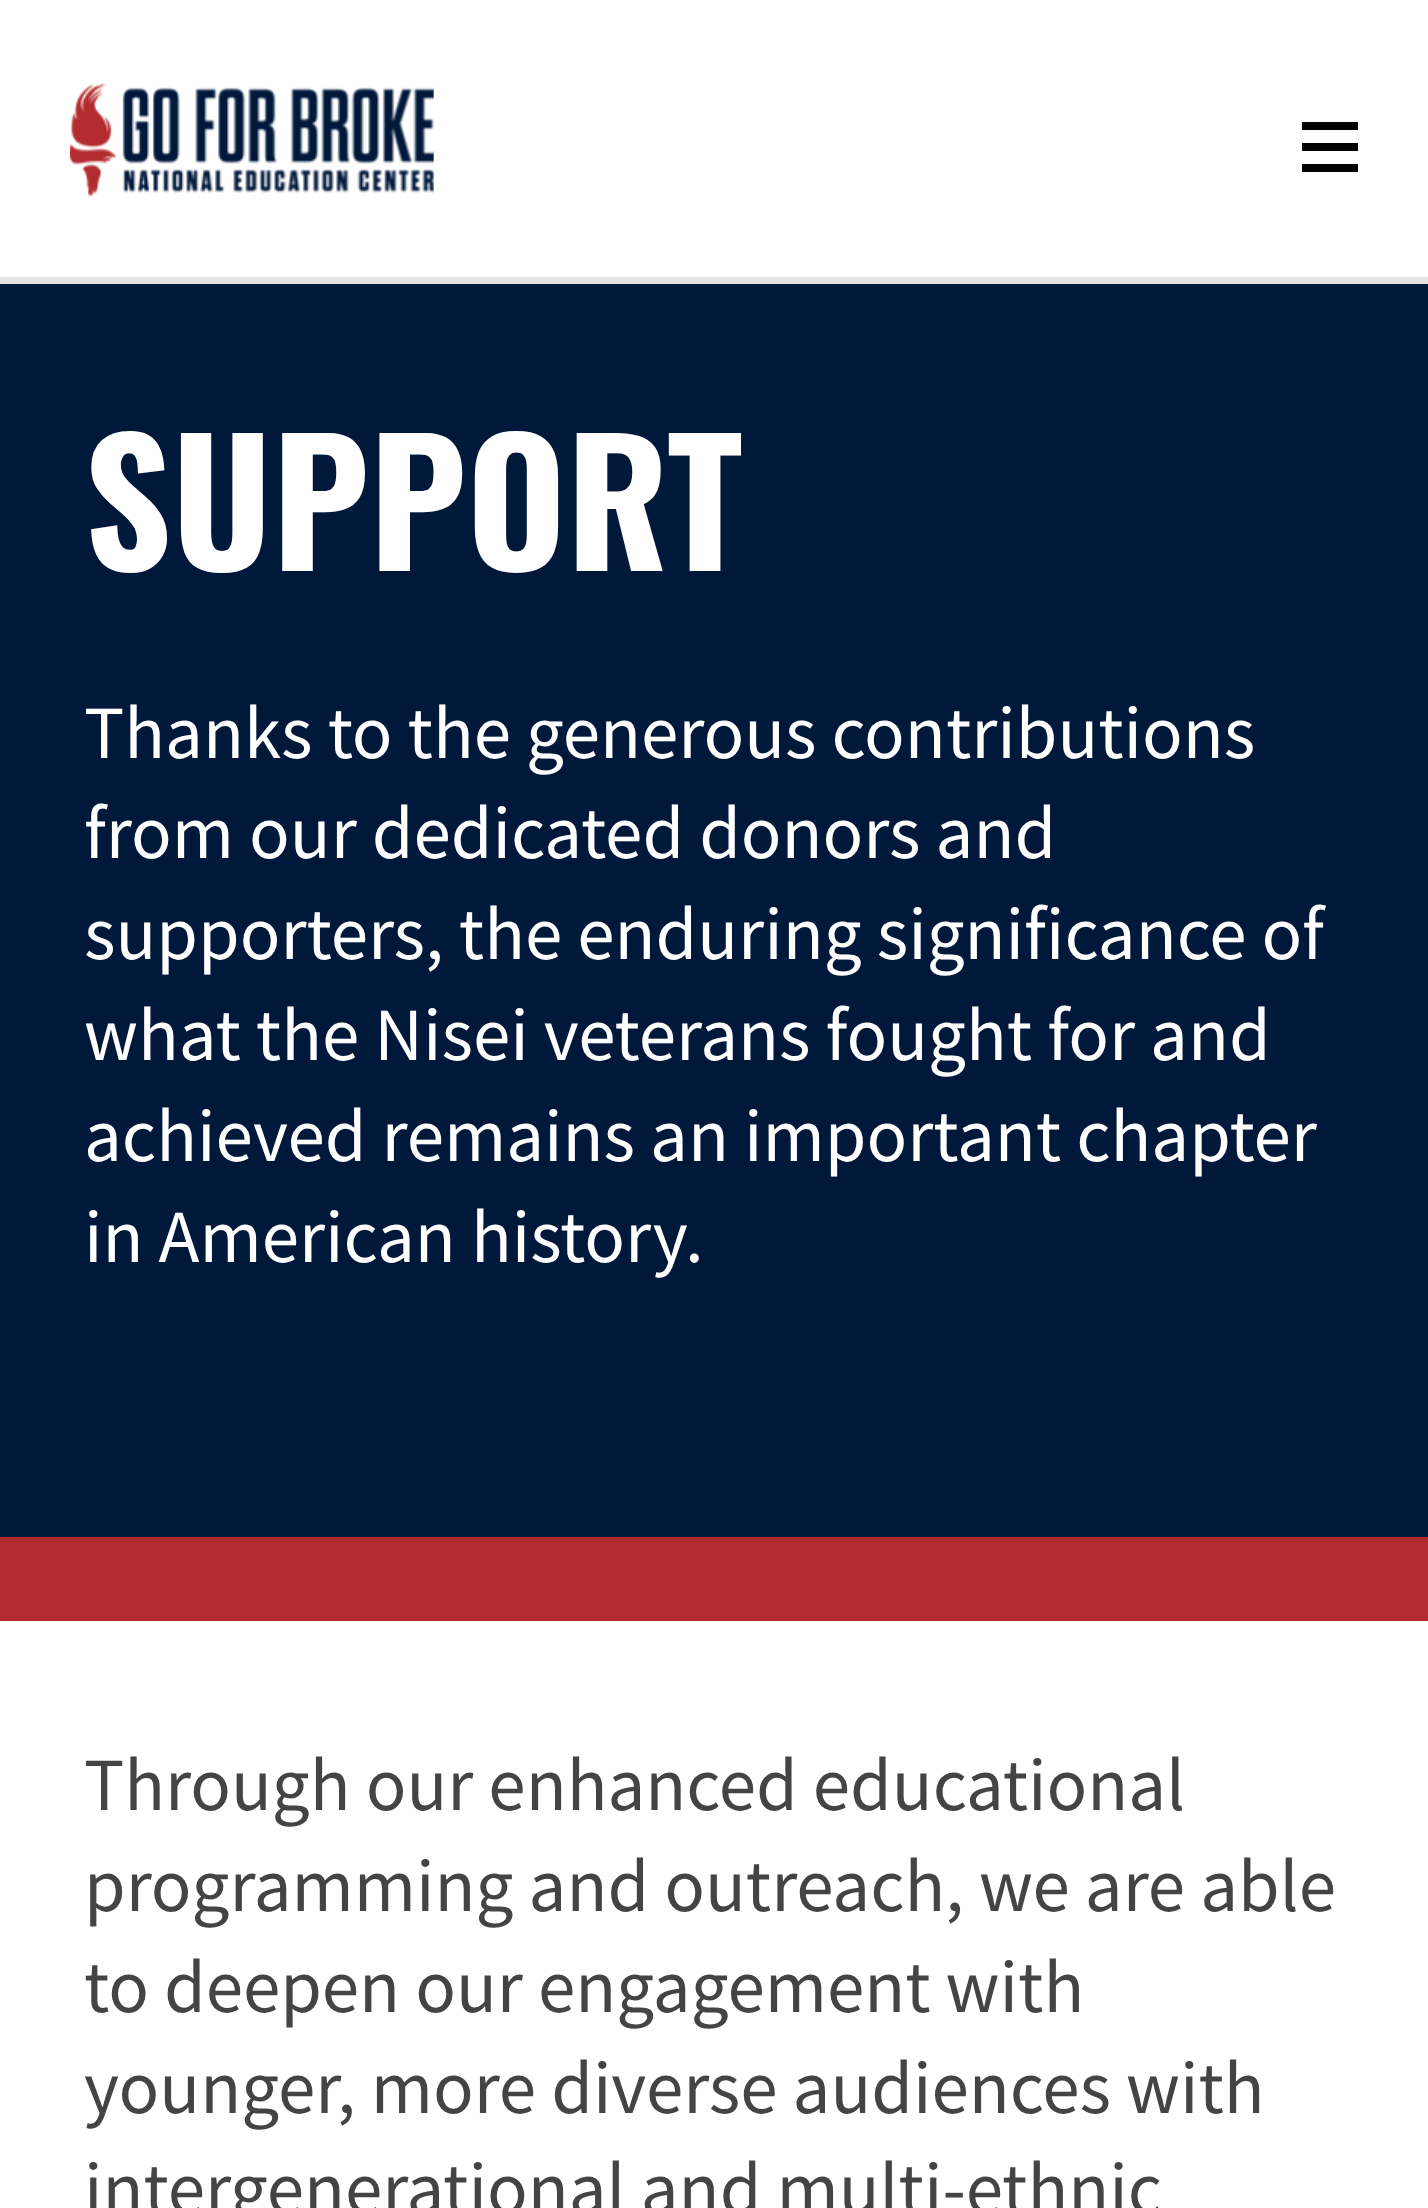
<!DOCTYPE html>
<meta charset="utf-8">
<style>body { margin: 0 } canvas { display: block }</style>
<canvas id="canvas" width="1428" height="2208"></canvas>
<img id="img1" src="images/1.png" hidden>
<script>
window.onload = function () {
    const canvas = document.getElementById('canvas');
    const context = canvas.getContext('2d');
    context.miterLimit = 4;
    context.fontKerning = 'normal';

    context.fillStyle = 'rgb(255, 255, 255)';
    context.fillRect(0, 0, 1428, 2208);
    context.fillStyle = 'rgb(228, 228, 228)';
    context.fillRect(0, 277, 1428, 7);
    context.drawImage(document.getElementById('img1'), 70, 83, 364, 115);
    context.fillStyle = 'rgb(0, 0, 0)';
    context.fillRect(1302, 164, 56, 8);
    context.fillRect(1302, 143, 56, 8);
    context.fillRect(1302, 122, 56, 8);
    context.fillStyle = 'rgb(0, 24, 58)';
    context.fillRect(0, 284, 1428, 1253);
    context.fillStyle = 'rgb(178, 43, 46)';
    context.fillRect(0, 1537, 1428, 84);
    context.font = 'bold 170.5px Oswald';
    context.fillStyle = 'rgb(255, 255, 255)';
    context.fillText('SUPPORT', 84, 571);
    context.font = '67.25px Noto Sans JP';
    context.fillText('Thanks to the generous contributions', 84, 758);
    context.fillText('from our dedicated donors and', 84, 858);
    context.fillText('supporters, the enduring significance of', 84, 959);
    context.fillText('what the Nisei veterans fought for and', 84, 1060);
    context.fillText('achieved remains an important chapter', 84, 1161);
    context.fillText('in American history.', 84, 1262);
    context.fillStyle = 'rgb(68, 68, 68)';
    context.fillText('Through our enhanced educational', 84, 1810);
    context.fillText('programming and outreach, we are able', 84, 1911);
    context.fillText('to deepen our engagement with', 84, 2012);
    context.fillText('younger, more diverse audiences with', 84, 2113);
    context.fillText('intergenerational and multi-ethnic', 84, 2214);
};
</script>
